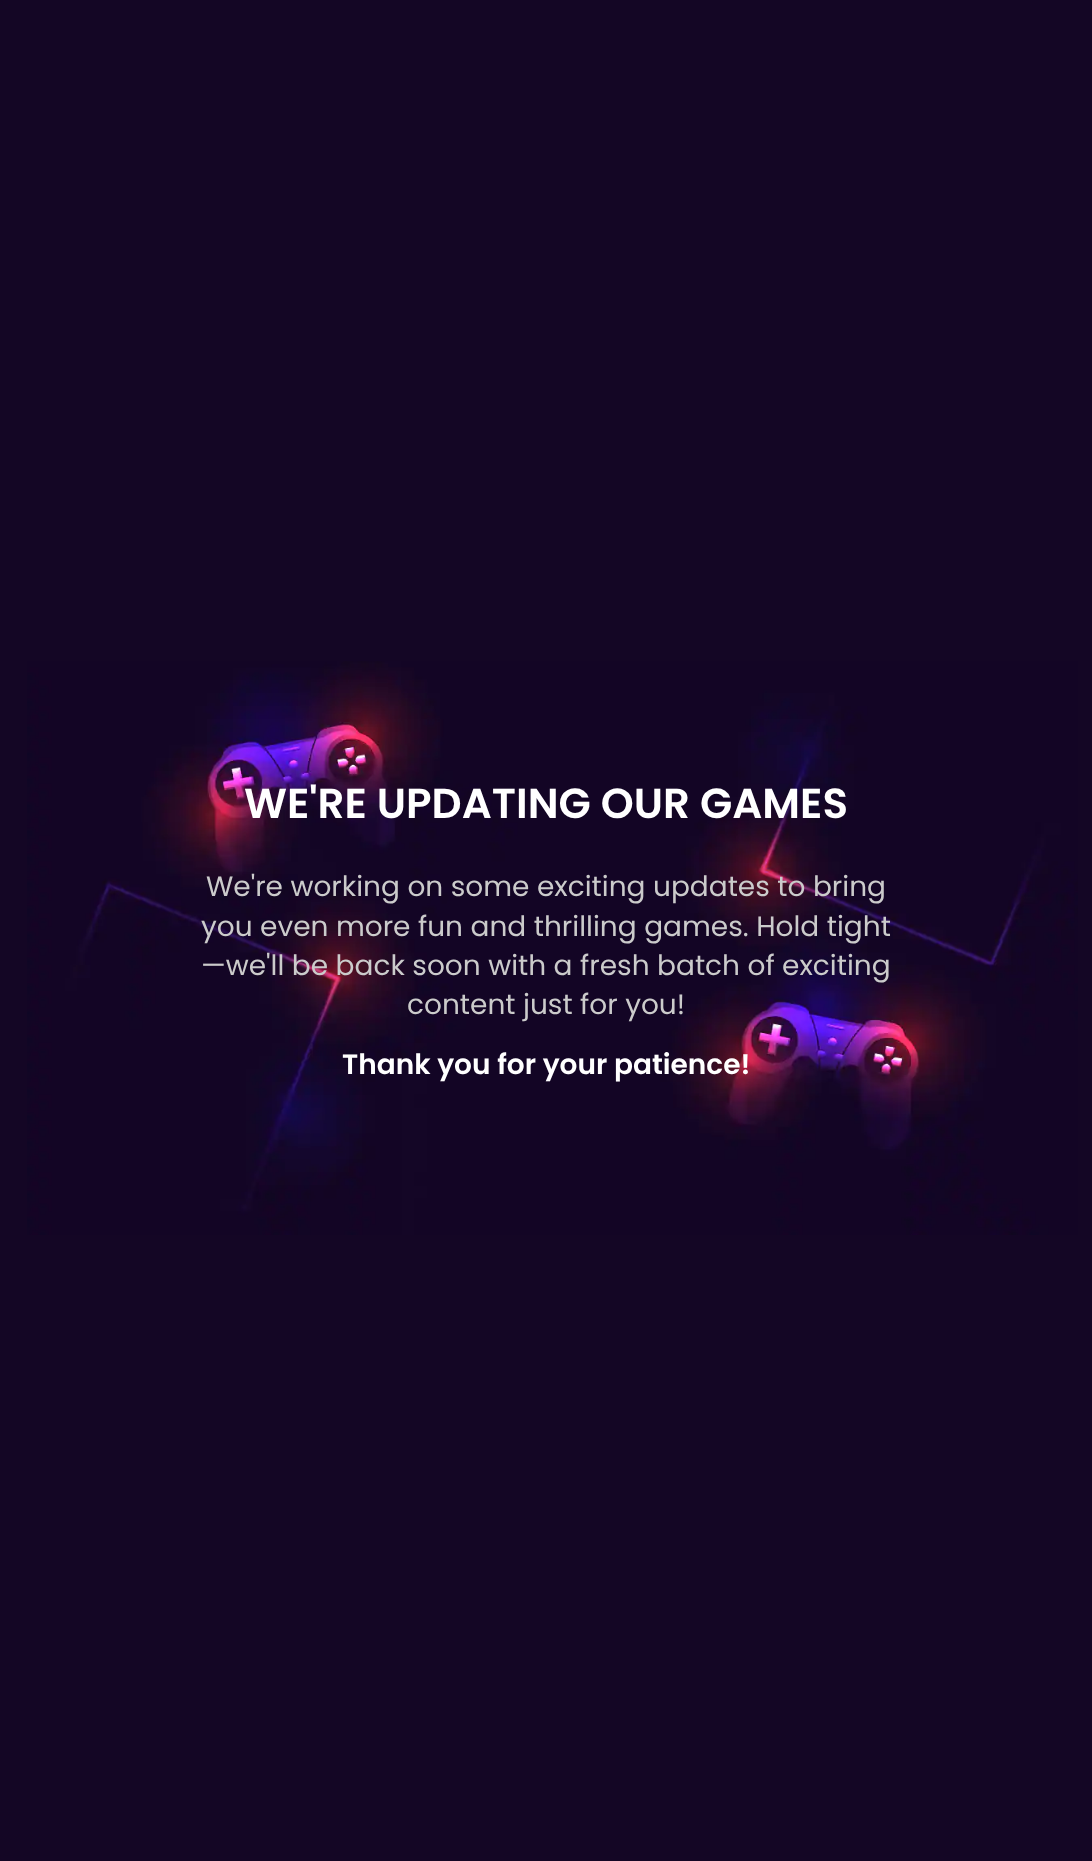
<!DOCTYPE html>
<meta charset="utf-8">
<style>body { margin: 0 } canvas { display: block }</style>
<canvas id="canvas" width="1092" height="1861"></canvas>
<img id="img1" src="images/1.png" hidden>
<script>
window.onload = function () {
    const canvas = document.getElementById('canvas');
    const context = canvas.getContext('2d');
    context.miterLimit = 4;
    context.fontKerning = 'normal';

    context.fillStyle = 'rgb(20, 6, 37)';
    context.fillRect(0, 0, 1092, 1861);
    context.drawImage(document.getElementById('img1'), 27, 661, 1051, 574);
    context.font = '600 42px Poppins';
    context.fillStyle = 'rgb(255, 255, 255)';
    context.fillText('WE\'RE UPDATING OUR GAMES', 244, 818);
    context.font = '28px Poppins';
    context.fillStyle = 'rgb(203, 203, 203)';
    context.fillText('We\'re working on some exciting updates to bring', 206, 896);
    context.fillText('you even more fun and thrilling games. Hold tight', 201, 936);
    context.fillText('—we\'ll be back soon with a fresh batch of exciting', 201, 975);
    context.fillText('content just for you!', 407, 1014);
    context.font = '600 28px Poppins';
    context.fillStyle = 'rgb(255, 255, 255)';
    context.fillText('Thank you for your patience!', 342, 1074);
};
</script>
